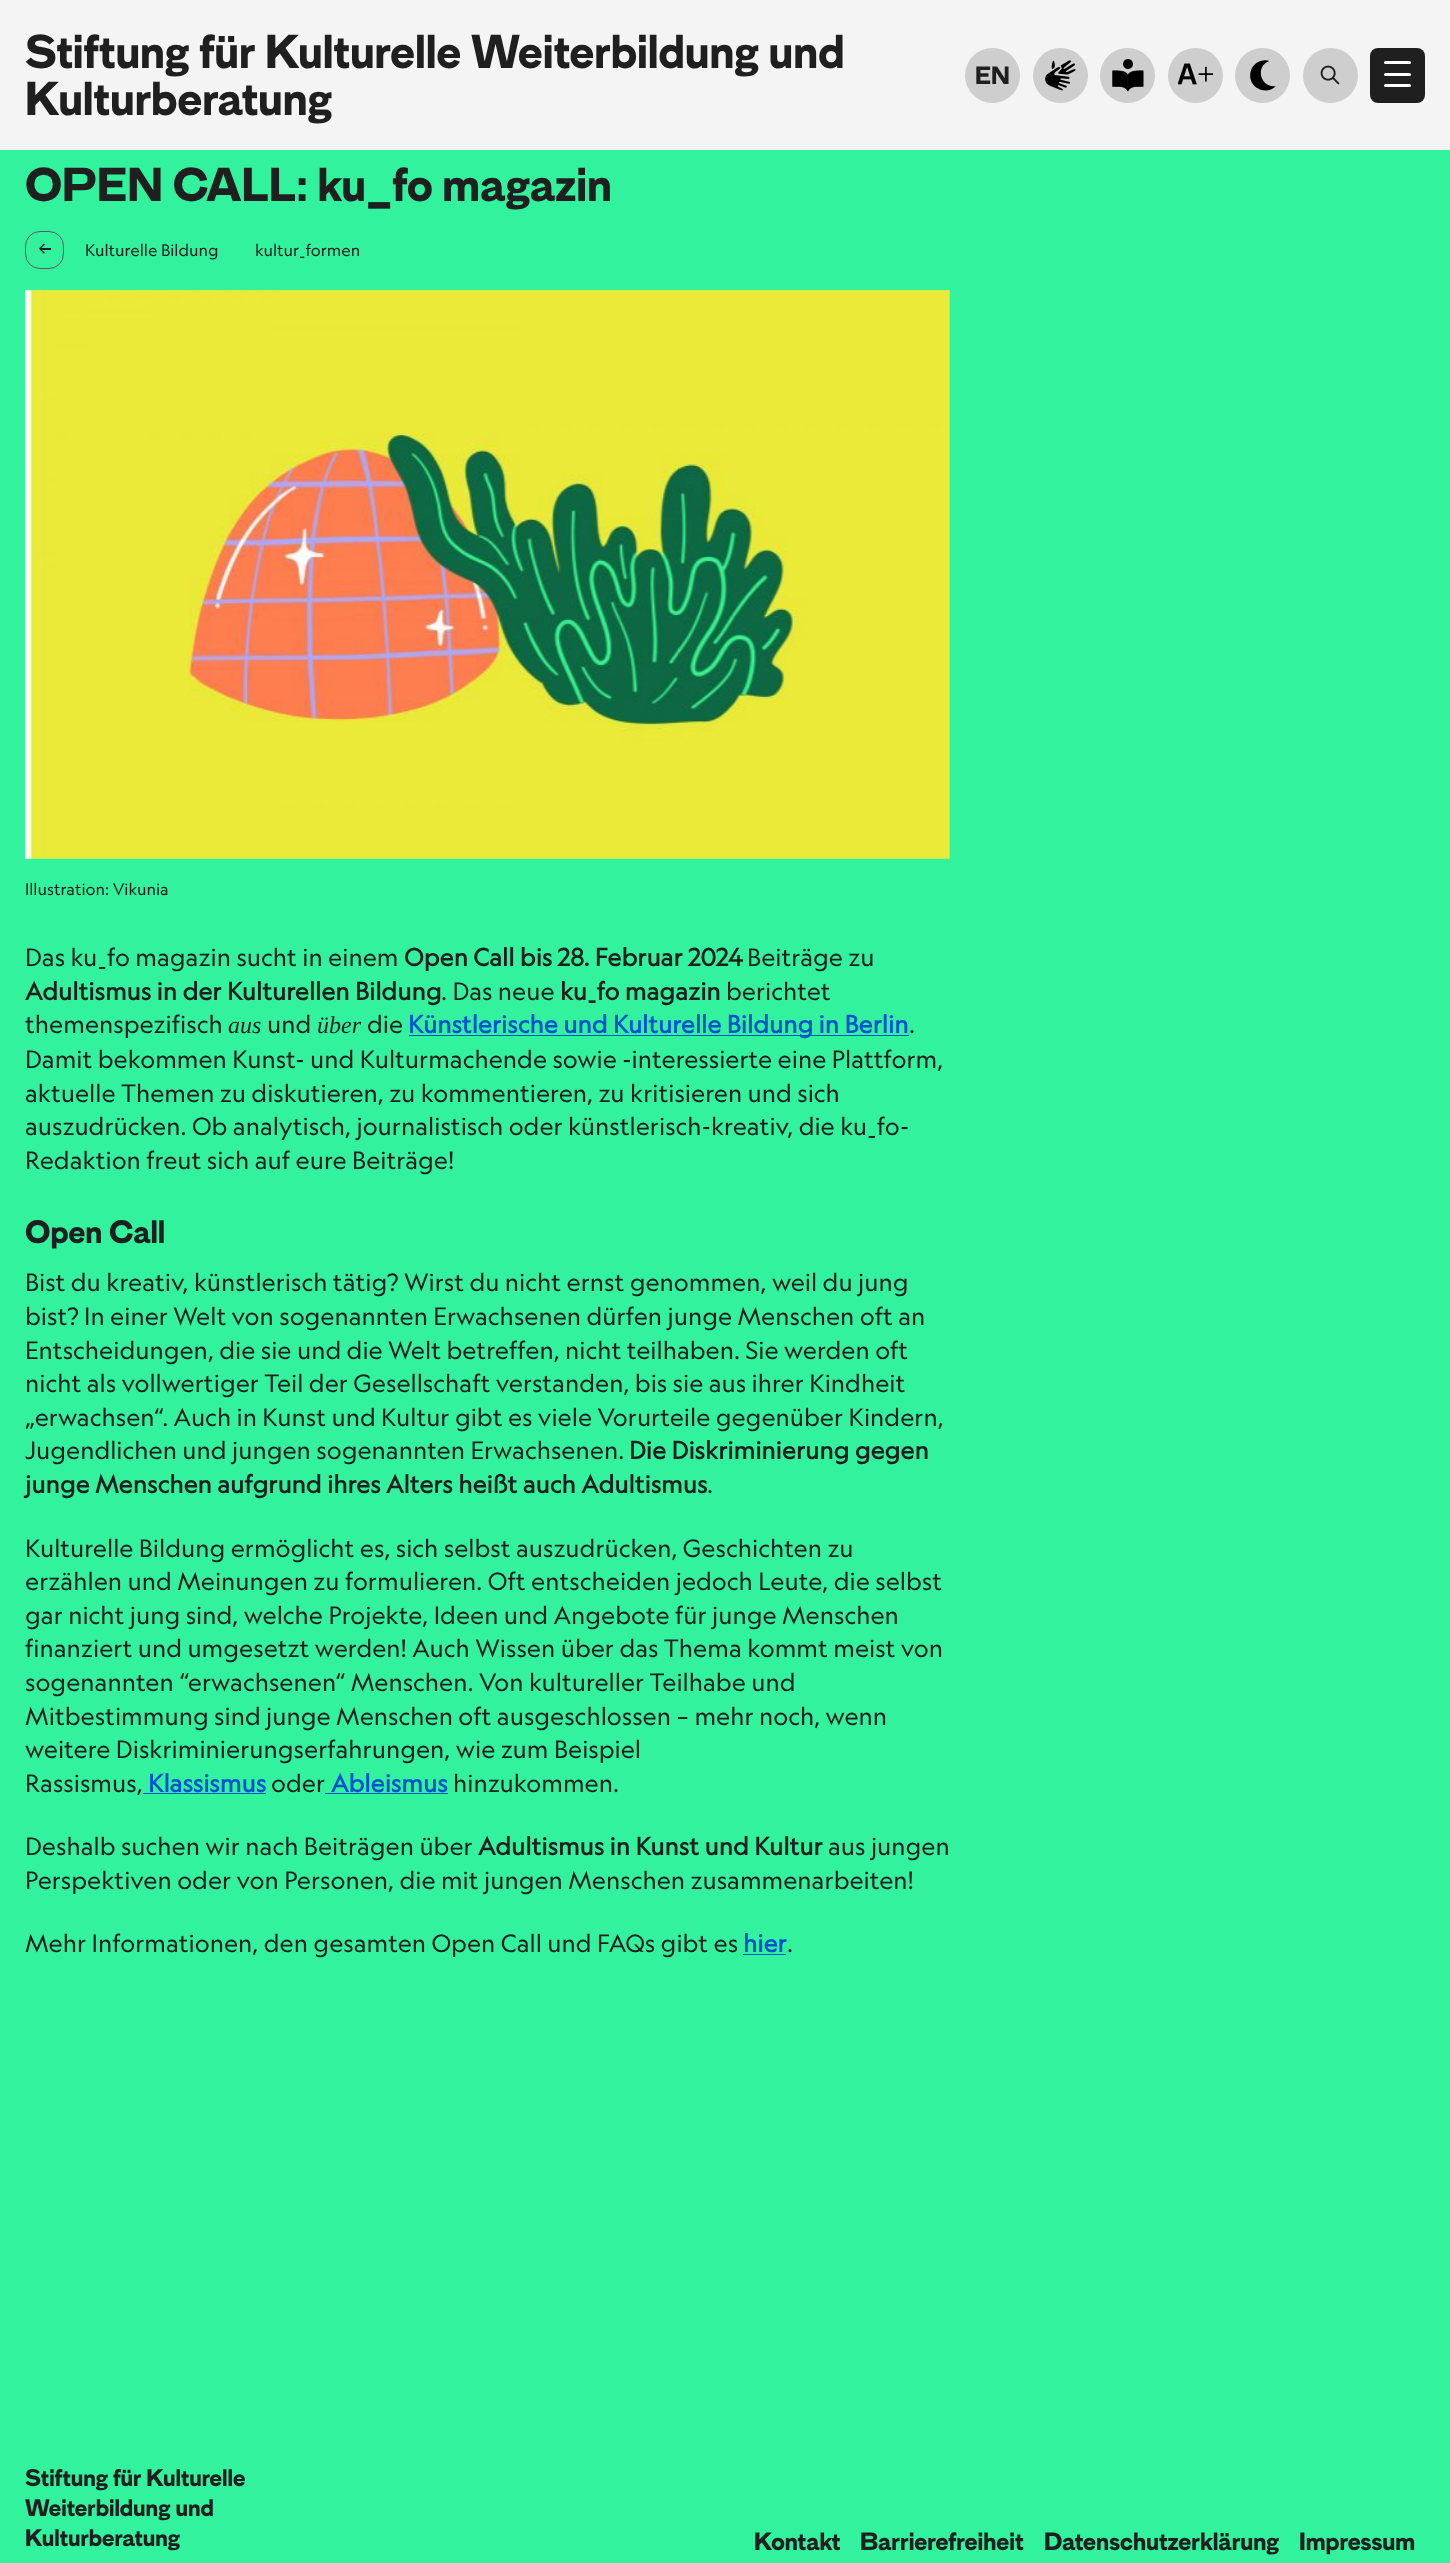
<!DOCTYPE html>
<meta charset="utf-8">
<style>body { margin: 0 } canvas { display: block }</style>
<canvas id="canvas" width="1450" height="2563"></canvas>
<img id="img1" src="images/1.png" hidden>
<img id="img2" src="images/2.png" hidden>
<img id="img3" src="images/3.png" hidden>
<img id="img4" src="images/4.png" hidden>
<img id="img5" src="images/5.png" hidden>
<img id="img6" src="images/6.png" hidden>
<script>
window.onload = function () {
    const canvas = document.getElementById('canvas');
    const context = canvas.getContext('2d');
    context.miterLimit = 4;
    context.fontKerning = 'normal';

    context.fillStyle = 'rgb(51, 242, 158)';
    context.fillRect(0, 0, 1450, 2563);
    context.fillStyle = 'rgb(244, 244, 244)';
    context.fillRect(0, 0, 1450, 150);
    context.fillStyle = 'rgb(206, 206, 206)';
    context.beginPath();
    context.arc(992.5, 75.5, 27.5, 0, 2 * Math.PI);
    context.fill();
    context.beginPath();
    context.arc(1060.5, 75.5, 27.5, 0, 2 * Math.PI);
    context.fill();
    context.drawImage(document.getElementById('img1'), 1045, 60, 31, 31);
    context.beginPath();
    context.arc(1127.5, 75.5, 27.5, 0, 2 * Math.PI);
    context.fill();
    context.drawImage(document.getElementById('img2'), 1112, 59, 32, 33);
    context.beginPath();
    context.arc(1195.5, 75.5, 27.5, 0, 2 * Math.PI);
    context.fill();
    context.drawImage(document.getElementById('img3'), 1178, 63, 35, 22);
    context.beginPath();
    context.arc(1262.5, 75.5, 27.5, 0, 2 * Math.PI);
    context.fill();
    context.fillStyle = 'rgb(0, 0, 0)';
    context.beginPath();
    context.moveTo(1269.5, 61);
    context.bezierCurveTo(1254.5, 66, 1260.5, 88.5, 1276, 86);
    context.bezierCurveTo(1265.5, 96.5, 1247.5, 87, 1250.5, 72.5);
    context.bezierCurveTo(1251, 68.5, 1253.5, 65, 1256.5, 63);
    context.bezierCurveTo(1260.5, 60.5, 1265, 59.5, 1269.5, 61);
    context.closePath();
    context.fill('evenodd');
    context.fillStyle = 'rgb(206, 206, 206)';
    context.beginPath();
    context.arc(1330.5, 75.5, 27.5, 0, 2 * Math.PI);
    context.fill();
    context.drawImage(document.getElementById('img4'), 1320, 65, 20, 20);
    context.fillStyle = 'rgb(31, 31, 31)';
    context.beginPath();
    context.roundRect(1370, 48, 55, 55, 8);
    context.fill();
    context.fillStyle = 'rgb(255, 255, 255)';
    context.beginPath();
    context.roundRect(1384, 61, 27, 3, 1.5);
    context.fill();
    context.beginPath();
    context.roundRect(1384, 73, 27, 3, 1.5);
    context.fill();
    context.beginPath();
    context.roundRect(1384, 84, 27, 3, 1.5);
    context.fill();
    context.beginPath();
    context.roundRect(25.5, 231.5, 38, 37, 14.5);
    context.strokeStyle = 'rgb(92, 92, 92)';
    context.stroke();
    context.drawImage(document.getElementById('img5'), 39, 243, 12, 11);
    context.drawImage(document.getElementById('img6'), 25, 289, 925, 570);
    context.fillStyle = 'rgb(0, 83, 207)';
    context.fillRect(409, 1035, 500, 1);
    context.fillRect(143, 1793, 123, 1);
    context.fillRect(325, 1793, 123, 1);
    context.fillRect(743, 1954, 43, 1);
    context.font = 'bold 47.5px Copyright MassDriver';
    context.fillStyle = 'rgb(31, 31, 31)';
    context.fillText('Stiftung für Kulturelle Weiterbildung und', 25, 68);
    context.fillText('Kulturberatung', 25, 115);
    context.font = 'bold 25px Copyright MassDriver';
    context.fillText('EN', 975, 84);
    context.font = 'bold 47.5px Copyright MassDriver';
    context.fillText('OPEN CALL: ku_fo magazin', 25, 201);
    context.font = '16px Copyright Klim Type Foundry';
    context.fillText('Kulturelle Bildung', 85, 256);
    context.fillText('kultur_formen', 255, 256);
    context.fillText('Illustration: Vikunia', 25, 895);
    context.font = '24px Copyright Klim Type Foundry';
    context.fillText('Das ku_fo magazin sucht in einem', 25, 966);
    context.font = 'bold 24px Copyright Klim Type Foundry';
    context.fillText('Open Call bis 28. Februar 2024', 404, 966);
    context.font = '24px Copyright Klim Type Foundry';
    context.fillText('Beiträge zu', 747, 966);
    context.font = 'bold 24px Copyright Klim Type Foundry';
    context.fillText('Adultismus in der Kulturellen Bildung', 25, 1000);
    context.font = '24px Copyright Klim Type Foundry';
    context.fillText('. Das neue', 441, 1000);
    context.font = 'bold 24px Copyright Klim Type Foundry';
    context.fillText('ku_fo magazin', 560, 1000);
    context.font = '24px Copyright Klim Type Foundry';
    context.fillText('berichtet', 726, 1000);
    context.fillText('themenspezifisch', 25, 1033);
    context.font = 'italic 24px Liberation Serif';
    context.fillText('aus', 228, 1033);
    context.font = '24px Copyright Klim Type Foundry';
    context.fillText('und', 267, 1033);
    context.font = 'italic 24px Liberation Serif';
    context.fillText('über', 317, 1033);
    context.font = '24px Copyright Klim Type Foundry';
    context.fillText('die', 367, 1033);
    context.font = 'bold 24px Copyright Klim Type Foundry';
    context.fillStyle = 'rgb(0, 83, 207)';
    context.fillText('Künstlerische und Kulturelle Bildung in Berlin', 408, 1033);
    context.font = '24px Copyright Klim Type Foundry';
    context.fillStyle = 'rgb(31, 31, 31)';
    context.fillText('.', 909, 1033);
    context.fillText('Damit bekommen Kunst- und Kulturmachende sowie -interessierte eine Plattform,', 25, 1068);
    context.fillText('aktuelle Themen zu diskutieren, zu kommentieren, zu kritisieren und sich', 25, 1102);
    context.fillText('auszudrücken. Ob analytisch, journalistisch oder künstlerisch-kreativ, die ku_fo-', 25, 1135);
    context.fillText('Redaktion freut sich auf eure Beiträge!', 25, 1169);
    context.font = 'bold 32.5px Copyright MassDriver';
    context.fillText('Open Call', 25, 1243);
    context.font = '24px Copyright Klim Type Foundry';
    context.fillText('Bist du kreativ, künstlerisch tätig? Wirst du nicht ernst genommen, weil du jung', 25, 1291);
    context.fillText('bist? In einer Welt von sogenannten Erwachsenen dürfen junge Menschen oft an', 25, 1325);
    context.fillText('Entscheidungen, die sie und die Welt betreffen, nicht teilhaben. Sie werden oft', 25, 1359);
    context.fillText('nicht als vollwertiger Teil der Gesellschaft verstanden, bis sie aus ihrer Kindheit', 25, 1392);
    context.fillText('„erwachsen“. Auch in Kunst und Kultur gibt es viele Vorurteile gegenüber Kindern,', 25, 1426);
    context.fillText('Jugendlichen und jungen sogenannten Erwachsenen.', 25, 1459);
    context.font = 'bold 24px Copyright Klim Type Foundry';
    context.fillText('Die Diskriminierung gegen', 629, 1459);
    context.fillText('junge Menschen aufgrund ihres Alters heißt auch Adultismus', 25, 1493);
    context.font = '24px Copyright Klim Type Foundry';
    context.fillText('.', 707, 1493);
    context.fillText('Kulturelle Bildung ermöglicht es, sich selbst auszudrücken, Geschichten zu', 25, 1557);
    context.fillText('erzählen und Meinungen zu formulieren. Oft entscheiden jedoch Leute, die selbst', 25, 1590);
    context.fillText('gar nicht jung sind, welche Projekte, Ideen und Angebote für junge Menschen', 25, 1624);
    context.fillText('finanziert und umgesetzt werden! Auch Wissen über das Thema kommt meist von', 25, 1657);
    context.fillText('sogenannten “erwachsenen“ Menschen. Von kultureller Teilhabe und', 25, 1691);
    context.fillText('Mitbestimmung sind junge Menschen oft ausgeschlossen – mehr noch, wenn', 25, 1725);
    context.fillText('weitere Diskriminierungserfahrungen, wie zum Beispiel', 25, 1758);
    context.fillText('Rassismus,', 25, 1792);
    context.font = 'bold 24px Copyright Klim Type Foundry';
    context.fillStyle = 'rgb(0, 83, 207)';
    context.fillText('Klassismus', 148, 1792);
    context.font = '24px Copyright Klim Type Foundry';
    context.fillStyle = 'rgb(31, 31, 31)';
    context.fillText('oder', 271, 1792);
    context.font = 'bold 24px Copyright Klim Type Foundry';
    context.fillStyle = 'rgb(0, 83, 207)';
    context.fillText('Ableismus', 331, 1792);
    context.font = '24px Copyright Klim Type Foundry';
    context.fillStyle = 'rgb(31, 31, 31)';
    context.fillText('hinzukommen.', 453, 1792);
    context.fillText('Deshalb suchen wir nach Beiträgen über', 25, 1855);
    context.font = 'bold 24px Copyright Klim Type Foundry';
    context.fillText('Adultismus in Kunst und Kultur', 478, 1855);
    context.font = '24px Copyright Klim Type Foundry';
    context.fillText('aus jungen', 828, 1855);
    context.fillText('Perspektiven oder von Personen, die mit jungen Menschen zusammenarbeiten!', 25, 1889);
    context.fillText('Mehr Informationen, den gesamten Open Call und FAQs gibt es', 25, 1952);
    context.font = 'bold 24px Copyright Klim Type Foundry';
    context.fillStyle = 'rgb(0, 83, 207)';
    context.fillText('hier', 743, 1952);
    context.font = '24px Copyright Klim Type Foundry';
    context.fillStyle = 'rgb(31, 31, 31)';
    context.fillText('.', 787, 1952);
    context.font = 'bold 24px Copyright MassDriver';
    context.fillText('Stiftung für Kulturelle', 25, 2486);
    context.fillText('Weiterbildung und', 25, 2516);
    context.fillText('Kulturberatung', 25, 2546);
    context.font = 'bold 25px Copyright MassDriver';
    context.fillText('Kontakt', 754, 2550);
    context.fillText('Barrierefreiheit', 860, 2550);
    context.fillText('Datenschutzerklärung', 1044, 2550);
    context.fillText('Impressum', 1299, 2550);
};
</script>
